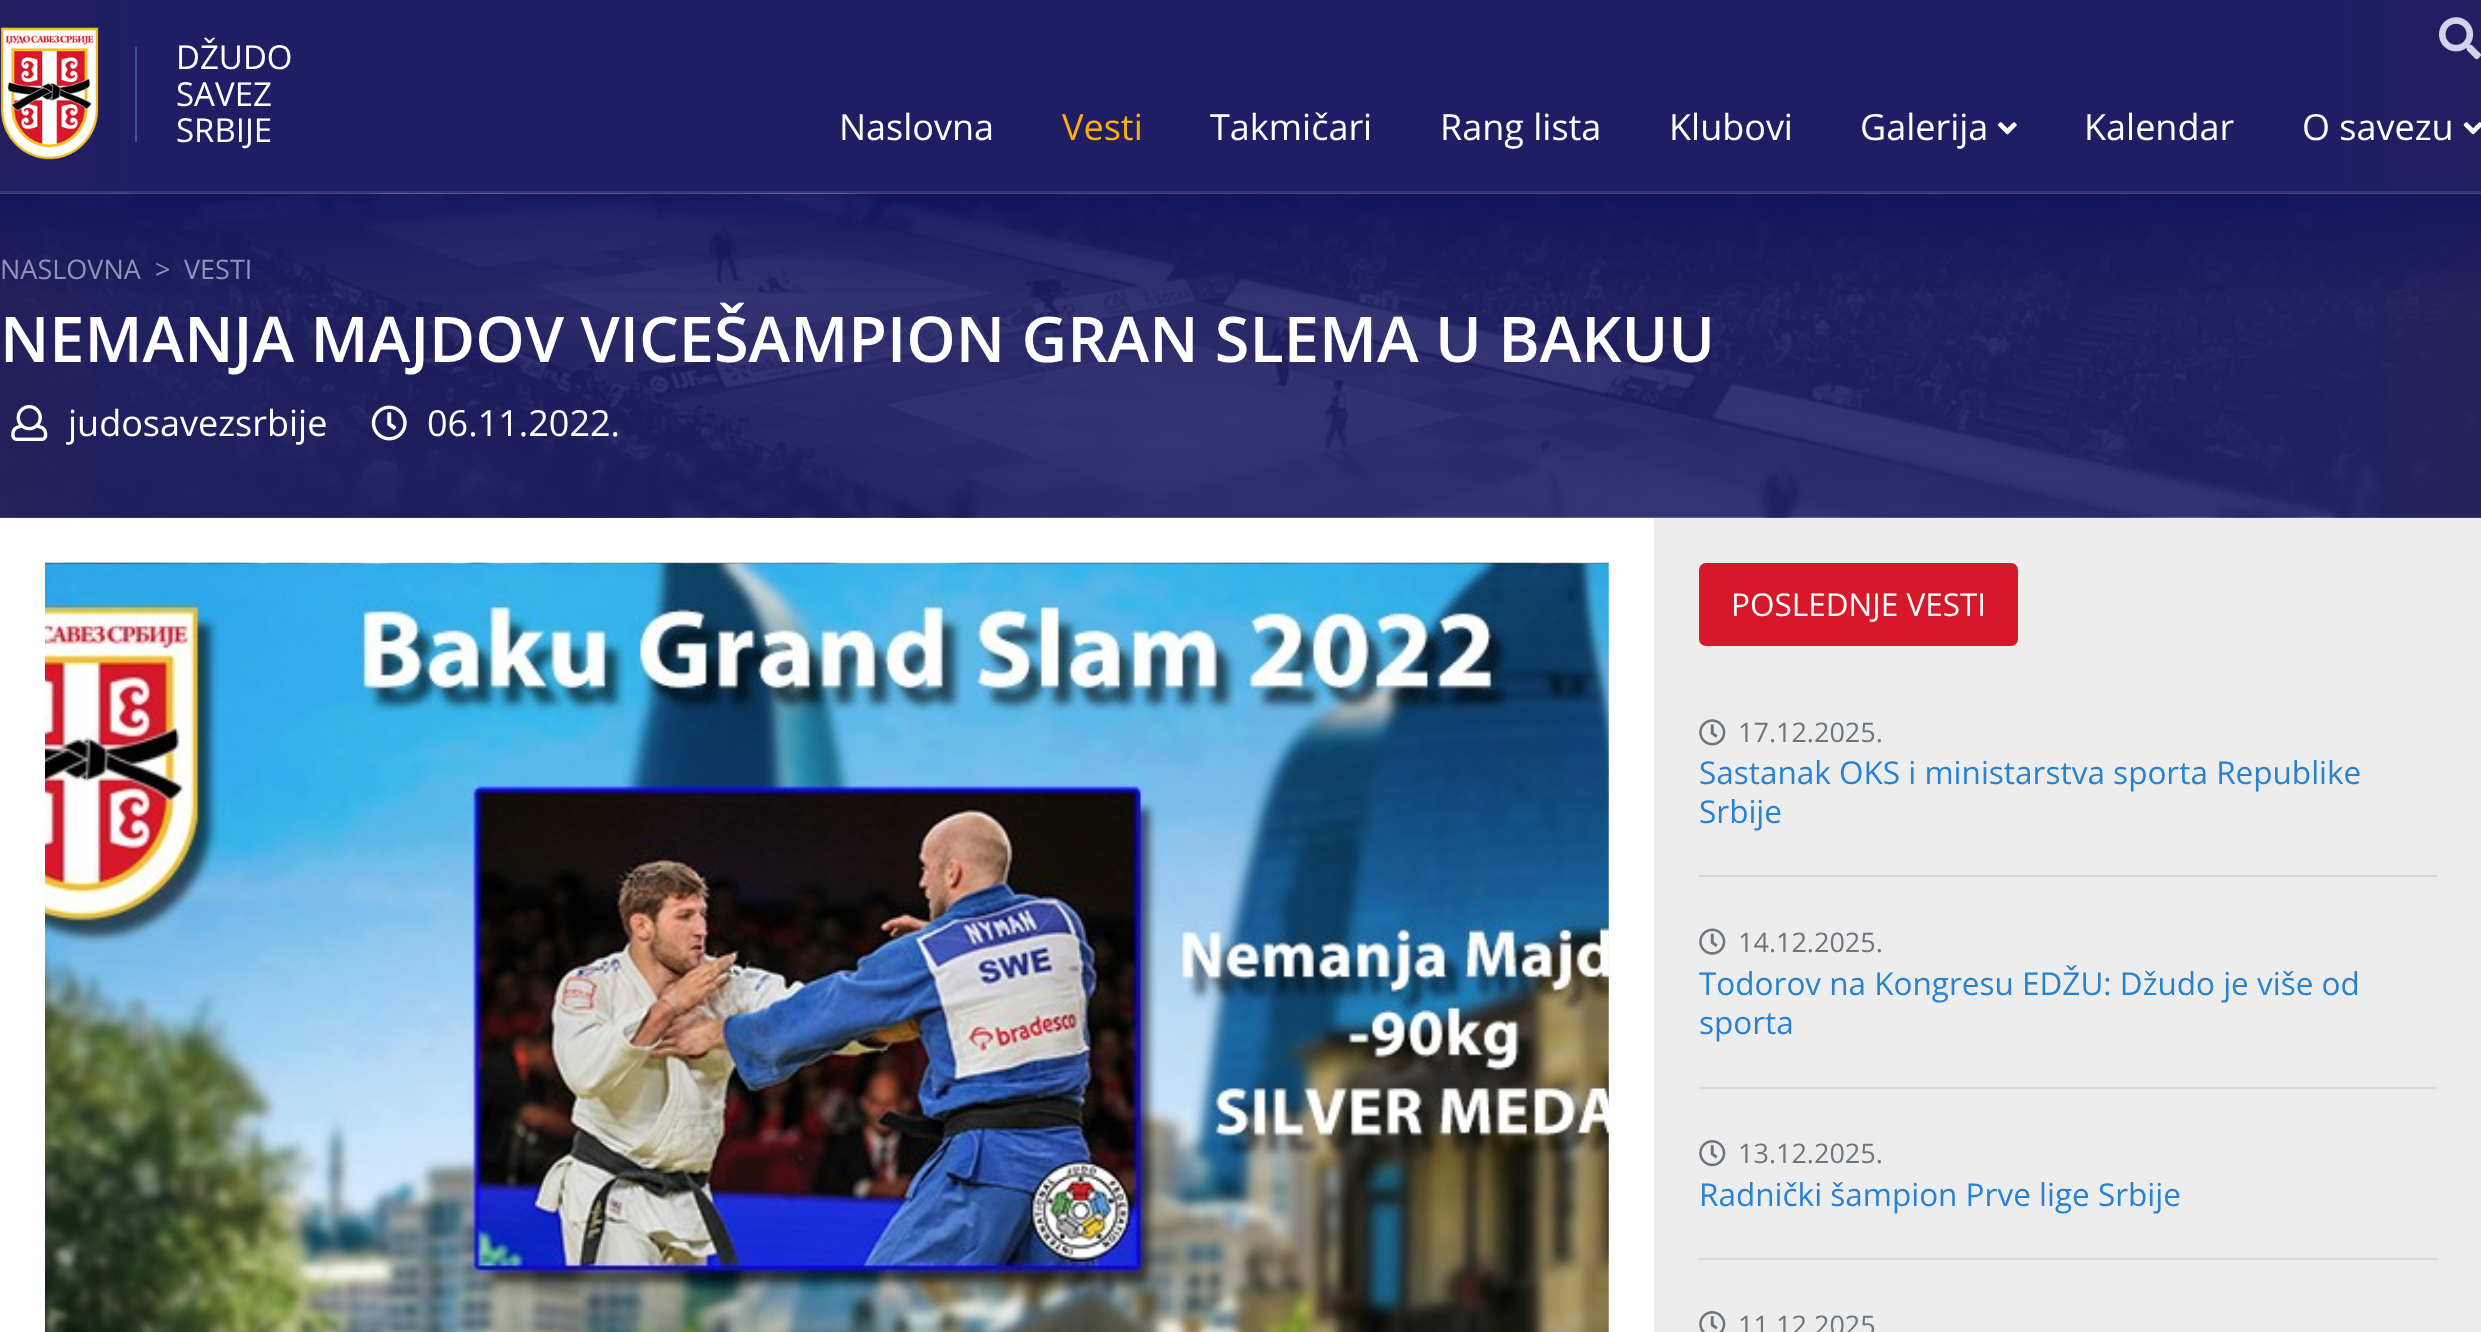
<!DOCTYPE html>
<meta charset="utf-8">
<style>body { margin: 0 } canvas { display: block }</style>
<canvas id="canvas" width="2481" height="1332"></canvas>
<img id="img1" src="images/1.png" hidden>
<img id="img2" src="images/2.png" hidden>
<img id="img3" src="images/3.png" hidden>
<img id="img4" src="images/4.png" hidden>
<img id="img5" src="images/5.png" hidden>
<img id="img6" src="images/6.png" hidden>
<img id="img7" src="images/7.png" hidden>
<img id="img8" src="images/8.png" hidden>
<img id="img9" src="images/9.png" hidden>
<img id="img10" src="images/10.png" hidden>
<img id="img11" src="images/11.png" hidden>
<img id="img12" src="images/12.png" hidden>
<img id="img13" src="images/13.png" hidden>
<img id="img14" src="images/14.png" hidden>
<script>
window.onload = function () {
    const canvas = document.getElementById('canvas');
    const context = canvas.getContext('2d');
    context.miterLimit = 4;
    context.fontKerning = 'normal';
    let gradient;

    context.fillStyle = 'rgb(255, 255, 255)';
    context.fillRect(0, 0, 2481, 1332);
    context.drawImage(document.getElementById('img1'), 0, 0, 2481, 194);
    context.fillStyle = 'rgba(255, 255, 255, 0.1)';
    context.fillRect(0, 191, 2481, 2);
    context.drawImage(document.getElementById('img2'), 0, 27, 99, 133);
    context.fillStyle = 'rgb(68, 84, 145)';
    context.fillRect(135, 47, 2, 95);
    context.drawImage(document.getElementById('img3'), 2439, 17, 42, 43);
    context.drawImage(document.getElementById('img4'), 1998, 122, 19, 13);
    context.drawImage(document.getElementById('img5'), 2463, 122, 18, 13);
    context.drawImage(document.getElementById('img6'), 0, 193, 2481, 325);
    context.drawImage(document.getElementById('img7'), 0, 193, 2481, 325);
    gradient = context.createLinearGradient(1241, 193, 1241, 304);
    gradient.addColorStop(0, 'rgba(7, 11, 88, 0.53)');
    gradient.addColorStop(0.01, 'rgba(7, 11, 88, 0.53)');
    gradient.addColorStop(1, 'rgba(7, 11, 88, 0)');
    context.fillStyle = gradient;
    context.fillRect(0, 194, 2481, 100);
    context.drawImage(document.getElementById('img8'), 11, 405, 37, 36);
    context.drawImage(document.getElementById('img9'), 371, 405, 36, 36);
    context.drawImage(document.getElementById('img10'), 45, 562, 1564, 770);
    context.fillStyle = 'rgb(237, 237, 237)';
    context.fillRect(1654, 518, 827, 814);
    context.fillStyle = 'rgb(215, 24, 42)';
    context.beginPath();
    context.roundRect(1701.5, 565.5, 314, 78, 4.5);
    context.fill();
    context.strokeStyle = 'rgb(215, 24, 42)';
    context.lineWidth = 5;
    context.stroke();
    context.fillStyle = 'rgb(216, 216, 216)';
    context.fillRect(1699, 875, 738, 2);
    context.drawImage(document.getElementById('img11'), 1699, 719, 27, 27);
    context.fillRect(1699, 1087, 738, 2);
    context.drawImage(document.getElementById('img12'), 1699, 928, 27, 27);
    context.fillRect(1699, 1258, 738, 2);
    context.drawImage(document.getElementById('img13'), 1699, 1140, 27, 27);
    context.drawImage(document.getElementById('img14'), 1699, 1311, 27, 21);
    context.font = '33px Open Sans';
    context.fillStyle = 'rgb(255, 255, 255)';
    context.fillText('DŽUDO', 176, 69);
    context.fillText('SAVEZ', 176, 106);
    context.fillText('SRBIJE', 176, 142);
    context.font = '36px Open Sans';
    context.fillText('Naslovna', 839, 140);
    context.fillStyle = 'rgb(255, 175, 5)';
    context.fillText('Vesti', 1062, 140);
    context.fillStyle = 'rgb(255, 255, 255)';
    context.fillText('Takmičari', 1210, 140);
    context.fillText('Rang lista', 1440, 140);
    context.fillText('Klubovi', 1669, 140);
    context.fillText('Galerija', 1860, 140);
    context.fillText('Kalendar', 2084, 140);
    context.fillText('O savezu', 2302, 140);
    context.font = '27px Open Sans';
    context.fillStyle = 'rgb(143, 148, 185)';
    context.fillText('NASLOVNA', 0, 279);
    context.fillText('>', 155, 279);
    context.fillText('VESTI', 184, 279);
    context.font = '600 63px Open Sans';
    context.fillStyle = 'rgb(255, 255, 255)';
    context.fillText('NEMANJA MAJDOV VICEŠAMPION GRAN SLEMA U BAKUU', 0, 362);
    context.font = '36px Open Sans';
    context.fillText('judosavezsrbije', 68, 436);
    context.fillText('06.11.2022.', 427, 436);
    context.font = '31.5px Open Sans';
    context.fillText('POSLEDNJE VESTI', 1731, 616);
    context.font = '27px Open Sans';
    context.fillStyle = 'rgb(108, 117, 125)';
    context.fillText('17.12.2025.', 1738, 742);
    context.font = '31.5px Open Sans';
    context.fillStyle = 'rgb(39, 130, 210)';
    context.fillText('Sastanak OKS i ministarstva sporta Republike', 1699, 784);
    context.fillText('Srbije', 1699, 823);
    context.font = '27px Open Sans';
    context.fillStyle = 'rgb(108, 117, 125)';
    context.fillText('14.12.2025.', 1738, 952);
    context.font = '31.5px Open Sans';
    context.fillStyle = 'rgb(39, 130, 210)';
    context.fillText('Todorov na Kongresu EDŽU: Džudo je više od', 1699, 995);
    context.fillText('sporta', 1699, 1034);
    context.font = '27px Open Sans';
    context.fillStyle = 'rgb(108, 117, 125)';
    context.fillText('13.12.2025.', 1738, 1163);
    context.font = '31.5px Open Sans';
    context.fillStyle = 'rgb(39, 130, 210)';
    context.fillText('Radnički šampion Prve lige Srbije', 1699, 1206);
    context.font = '27px Open Sans';
    context.fillStyle = 'rgb(108, 117, 125)';
    context.fillText('11.12.2025', 1738, 1335);
};
</script>
